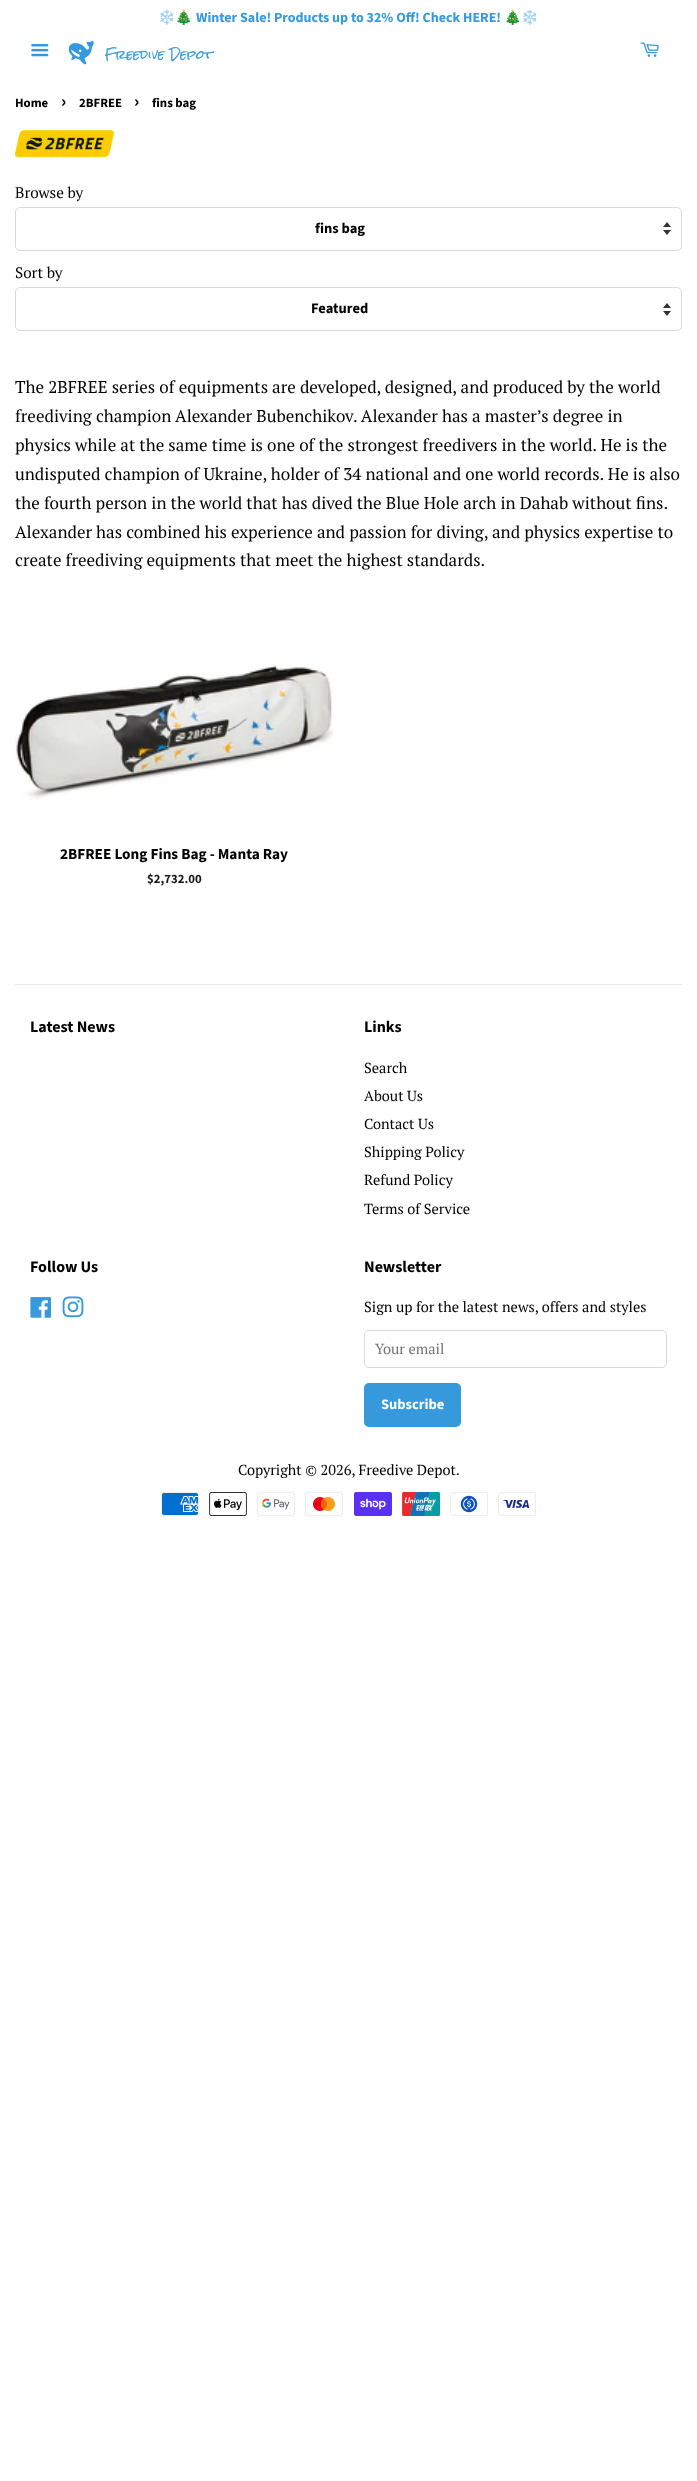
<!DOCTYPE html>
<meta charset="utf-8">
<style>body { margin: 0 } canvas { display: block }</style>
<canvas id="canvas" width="697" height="2481"></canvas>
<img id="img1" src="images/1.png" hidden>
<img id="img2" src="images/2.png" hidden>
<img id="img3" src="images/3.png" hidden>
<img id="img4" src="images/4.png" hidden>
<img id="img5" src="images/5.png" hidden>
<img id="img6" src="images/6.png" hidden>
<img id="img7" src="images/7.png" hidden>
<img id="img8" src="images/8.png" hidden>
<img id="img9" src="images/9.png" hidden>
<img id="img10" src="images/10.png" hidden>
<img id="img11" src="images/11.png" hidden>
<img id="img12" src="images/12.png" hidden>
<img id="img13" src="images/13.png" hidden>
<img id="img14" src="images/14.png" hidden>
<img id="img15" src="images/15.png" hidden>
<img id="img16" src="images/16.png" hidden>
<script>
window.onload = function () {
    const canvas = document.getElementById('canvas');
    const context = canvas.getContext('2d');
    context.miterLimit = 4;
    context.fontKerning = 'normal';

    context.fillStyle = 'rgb(255, 255, 255)';
    context.fillRect(0, 0, 697, 2481);
    context.drawImage(document.getElementById('img1'), 31, 44, 18, 13);
    context.drawImage(document.getElementById('img2'), 68, 40, 147, 25);
    context.drawImage(document.getElementById('img3'), 640, 42, 19, 15);
    context.drawImage(document.getElementById('img4'), 15, 130, 99, 27);
    context.drawImage(document.getElementById('img5'), 663, 222, 8, 13);
    context.beginPath();
    context.roundRect(15.5, 207.5, 666, 43, 4.5);
    context.strokeStyle = 'rgb(217, 217, 217)';
    context.stroke();
    context.drawImage(document.getElementById('img5'), 663, 303, 8, 13);
    context.beginPath();
    context.roundRect(15.5, 287.5, 666, 43, 4.5);
    context.stroke();
    context.drawImage(document.getElementById('img6'), 15, 662, 319, 138);
    context.fillStyle = 'rgb(235, 235, 235)';
    context.fillRect(15, 984, 667, 1);
    context.drawImage(document.getElementById('img7'), 30, 1297, 21, 21);
    context.drawImage(document.getElementById('img8'), 62, 1296, 22, 22);
    context.beginPath();
    context.roundRect(364.5, 1330.5, 302, 37, 4.5);
    context.stroke();
    context.fillStyle = 'rgb(53, 153, 220)';
    context.beginPath();
    context.roundRect(364, 1383, 97, 44, 5);
    context.fill();
    context.drawImage(document.getElementById('img9'), 161, 1492, 38, 24);
    context.drawImage(document.getElementById('img10'), 209, 1492, 38, 24);
    context.drawImage(document.getElementById('img11'), 257, 1492, 38, 24);
    context.drawImage(document.getElementById('img12'), 305, 1492, 38, 24);
    context.drawImage(document.getElementById('img13'), 354, 1492, 38, 24);
    context.drawImage(document.getElementById('img14'), 402, 1492, 38, 24);
    context.drawImage(document.getElementById('img15'), 450, 1492, 38, 24);
    context.drawImage(document.getElementById('img16'), 498, 1492, 38, 24);
    context.font = 'bold 14px Noto Color Emoji';
    context.fillText('❄️🎄', 158, 22);
    context.font = 'bold 14px Source Sans Pro';
    context.fillText('Winter Sale! Products up to 32% Off! Check HERE!', 196, 22);
    context.font = 'bold 14px Noto Color Emoji';
    context.fillText('🎄❄️', 504, 22);
    context.font = 'bold 12.75px Source Sans Pro';
    context.fillStyle = 'rgb(0, 0, 0)';
    context.fillText('Home', 15, 107);
    context.font = 'bold 18px Source Sans Pro';
    context.fillText('›', 61, 107);
    context.font = 'bold 12.75px Source Sans Pro';
    context.fillText('2BFREE', 79, 107);
    context.font = 'bold 18px Source Sans Pro';
    context.fillText('›', 134, 107);
    context.font = 'bold 12.75px Source Sans Pro';
    context.fillText('fins bag', 152, 107);
    context.font = '15.25px PT Serif';
    context.fillText('Browse by', 15, 198);
    context.font = 'bold 14.5px Source Sans Pro';
    context.fillText('fins bag', 315, 233);
    context.font = '15.25px PT Serif';
    context.fillText('Sort by', 15, 278);
    context.font = 'bold 14.5px Source Sans Pro';
    context.fillText('Featured', 311, 313);
    context.font = '17px PT Serif';
    context.fillText('The 2BFREE series of equipments are developed, designed, and produced by the world', 15, 393);
    context.fillText('freediving champion Alexander Bubenchikov. Alexander has a master’s degree in', 15, 422);
    context.fillText('physics while at the same time is one of the strongest freedivers in the world. He is the', 15, 451);
    context.fillText('undisputed champion of Ukraine, holder of 34 national and one world records. He is also', 15, 480);
    context.fillText('the fourth person in the world that has dived the Blue Hole arch in Dahab without fins.', 15, 509);
    context.fillText('Alexander has combined his experience and passion for diving, and physics expertise to', 15, 538);
    context.fillText('create freediving equipments that meet the highest standards.', 15, 566);
    context.font = 'bold 15.25px Source Sans Pro';
    context.fillText('2BFREE Long Fins Bag - Manta Ray', 60, 859);
    context.font = 'bold 12.75px Source Sans Pro';
    context.fillStyle = 'rgb(26, 26, 26)';
    context.fillText('$2,732.00', 147, 883);
    context.font = 'bold 16px Source Sans Pro';
    context.fillStyle = 'rgb(0, 0, 0)';
    context.fillText('Latest News', 30, 1032);
    context.fillText('Links', 364, 1032);
    context.font = '14.5px PT Serif';
    context.fillText('Search', 364, 1073);
    context.fillText('About Us', 364, 1101);
    context.fillText('Contact Us', 364, 1129);
    context.fillText('Shipping Policy', 364, 1157);
    context.fillText('Refund Policy', 364, 1185);
    context.fillText('Terms of Service', 364, 1214);
    context.font = 'bold 16px Source Sans Pro';
    context.fillText('Follow Us', 30, 1272);
    context.fillText('Newsletter', 364, 1272);
    context.font = '14.5px PT Serif';
    context.fillText('Sign up for the latest news, offers and styles', 364, 1312);
    context.fillStyle = 'rgb(117, 117, 117)';
    context.fillText('Your email', 375, 1354);
    context.font = 'bold 14.5px Source Sans Pro';
    context.fillStyle = 'rgb(255, 255, 255)';
    context.fillText('Subscribe', 381, 1409);
    context.font = '14.5px PT Serif';
    context.fillStyle = 'rgb(0, 0, 0)';
    context.fillText('Copyright © 2026, Freedive Depot.', 238, 1475);
};
</script>
